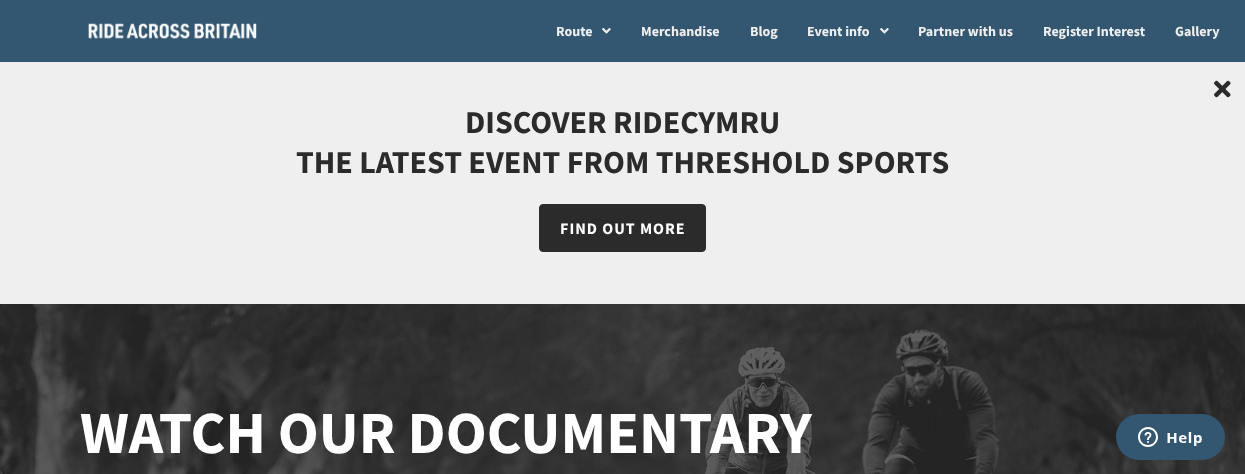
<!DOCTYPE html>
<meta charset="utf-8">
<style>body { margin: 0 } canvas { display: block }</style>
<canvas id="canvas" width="1245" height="474"></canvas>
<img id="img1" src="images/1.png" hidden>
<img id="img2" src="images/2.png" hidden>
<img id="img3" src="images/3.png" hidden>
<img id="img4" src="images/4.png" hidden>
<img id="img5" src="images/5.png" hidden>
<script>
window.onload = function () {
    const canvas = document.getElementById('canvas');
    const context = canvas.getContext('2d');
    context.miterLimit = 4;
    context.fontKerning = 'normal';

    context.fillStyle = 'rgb(255, 255, 255)';
    context.fillRect(0, 0, 1245, 474);
    context.fillStyle = 'rgb(51, 87, 112)';
    context.fillRect(0, 0, 1245, 62);
    context.drawImage(document.getElementById('img1'), 88, 23, 169, 16);
    context.drawImage(document.getElementById('img2'), 602, 28, 9, 6);
    context.drawImage(document.getElementById('img2'), 880, 28, 9, 6);
    context.fillStyle = 'rgb(239, 239, 239)';
    context.fillRect(0, 62, 1245, 242);
    context.drawImage(document.getElementById('img3'), 1214, 80, 17, 18);
    context.fillStyle = 'rgb(43, 43, 43)';
    context.beginPath();
    context.roundRect(539.5, 204.5, 166, 47, 3.5);
    context.fill();
    context.strokeStyle = 'rgb(43, 43, 43)';
    context.stroke();
    context.drawImage(document.getElementById('img4'), 0, 304, 1245, 170);
    context.drawImage(document.getElementById('img5'), 1116, 414, 109, 46);
    context.font = 'bold 14px Source Sans Pro';
    context.fillStyle = 'rgb(239, 239, 239)';
    context.fillText('Route', 556, 36);
    context.fillText('Merchandise', 641, 36);
    context.fillText('Blog', 750, 36);
    context.fillText('Event info', 807, 36);
    context.fillText('Partner with us', 918, 36);
    context.fillText('Register Interest', 1043, 36);
    context.fillText('Gallery', 1175, 36);
    context.font = 'bold 32px Source Sans Pro';
    context.fillStyle = 'rgb(43, 43, 43)';
    context.fillText('DISCOVER RIDECYMRU', 465, 133);
    context.fillText('THE LATEST EVENT FROM THRESHOLD SPORTS', 296, 173);
    context.letterSpacing = '1px';
    context.font = 'bold 16px Source Sans Pro';
    context.fillStyle = 'rgb(255, 255, 255)';
    context.fillText('FIND OUT MORE', 560, 234);
    context.letterSpacing = '0px';
    context.font = 'bold 60px Source Sans Pro';
    context.fillText('WATCH OUR DOCUMENTARY', 80, 453);
};
</script>
